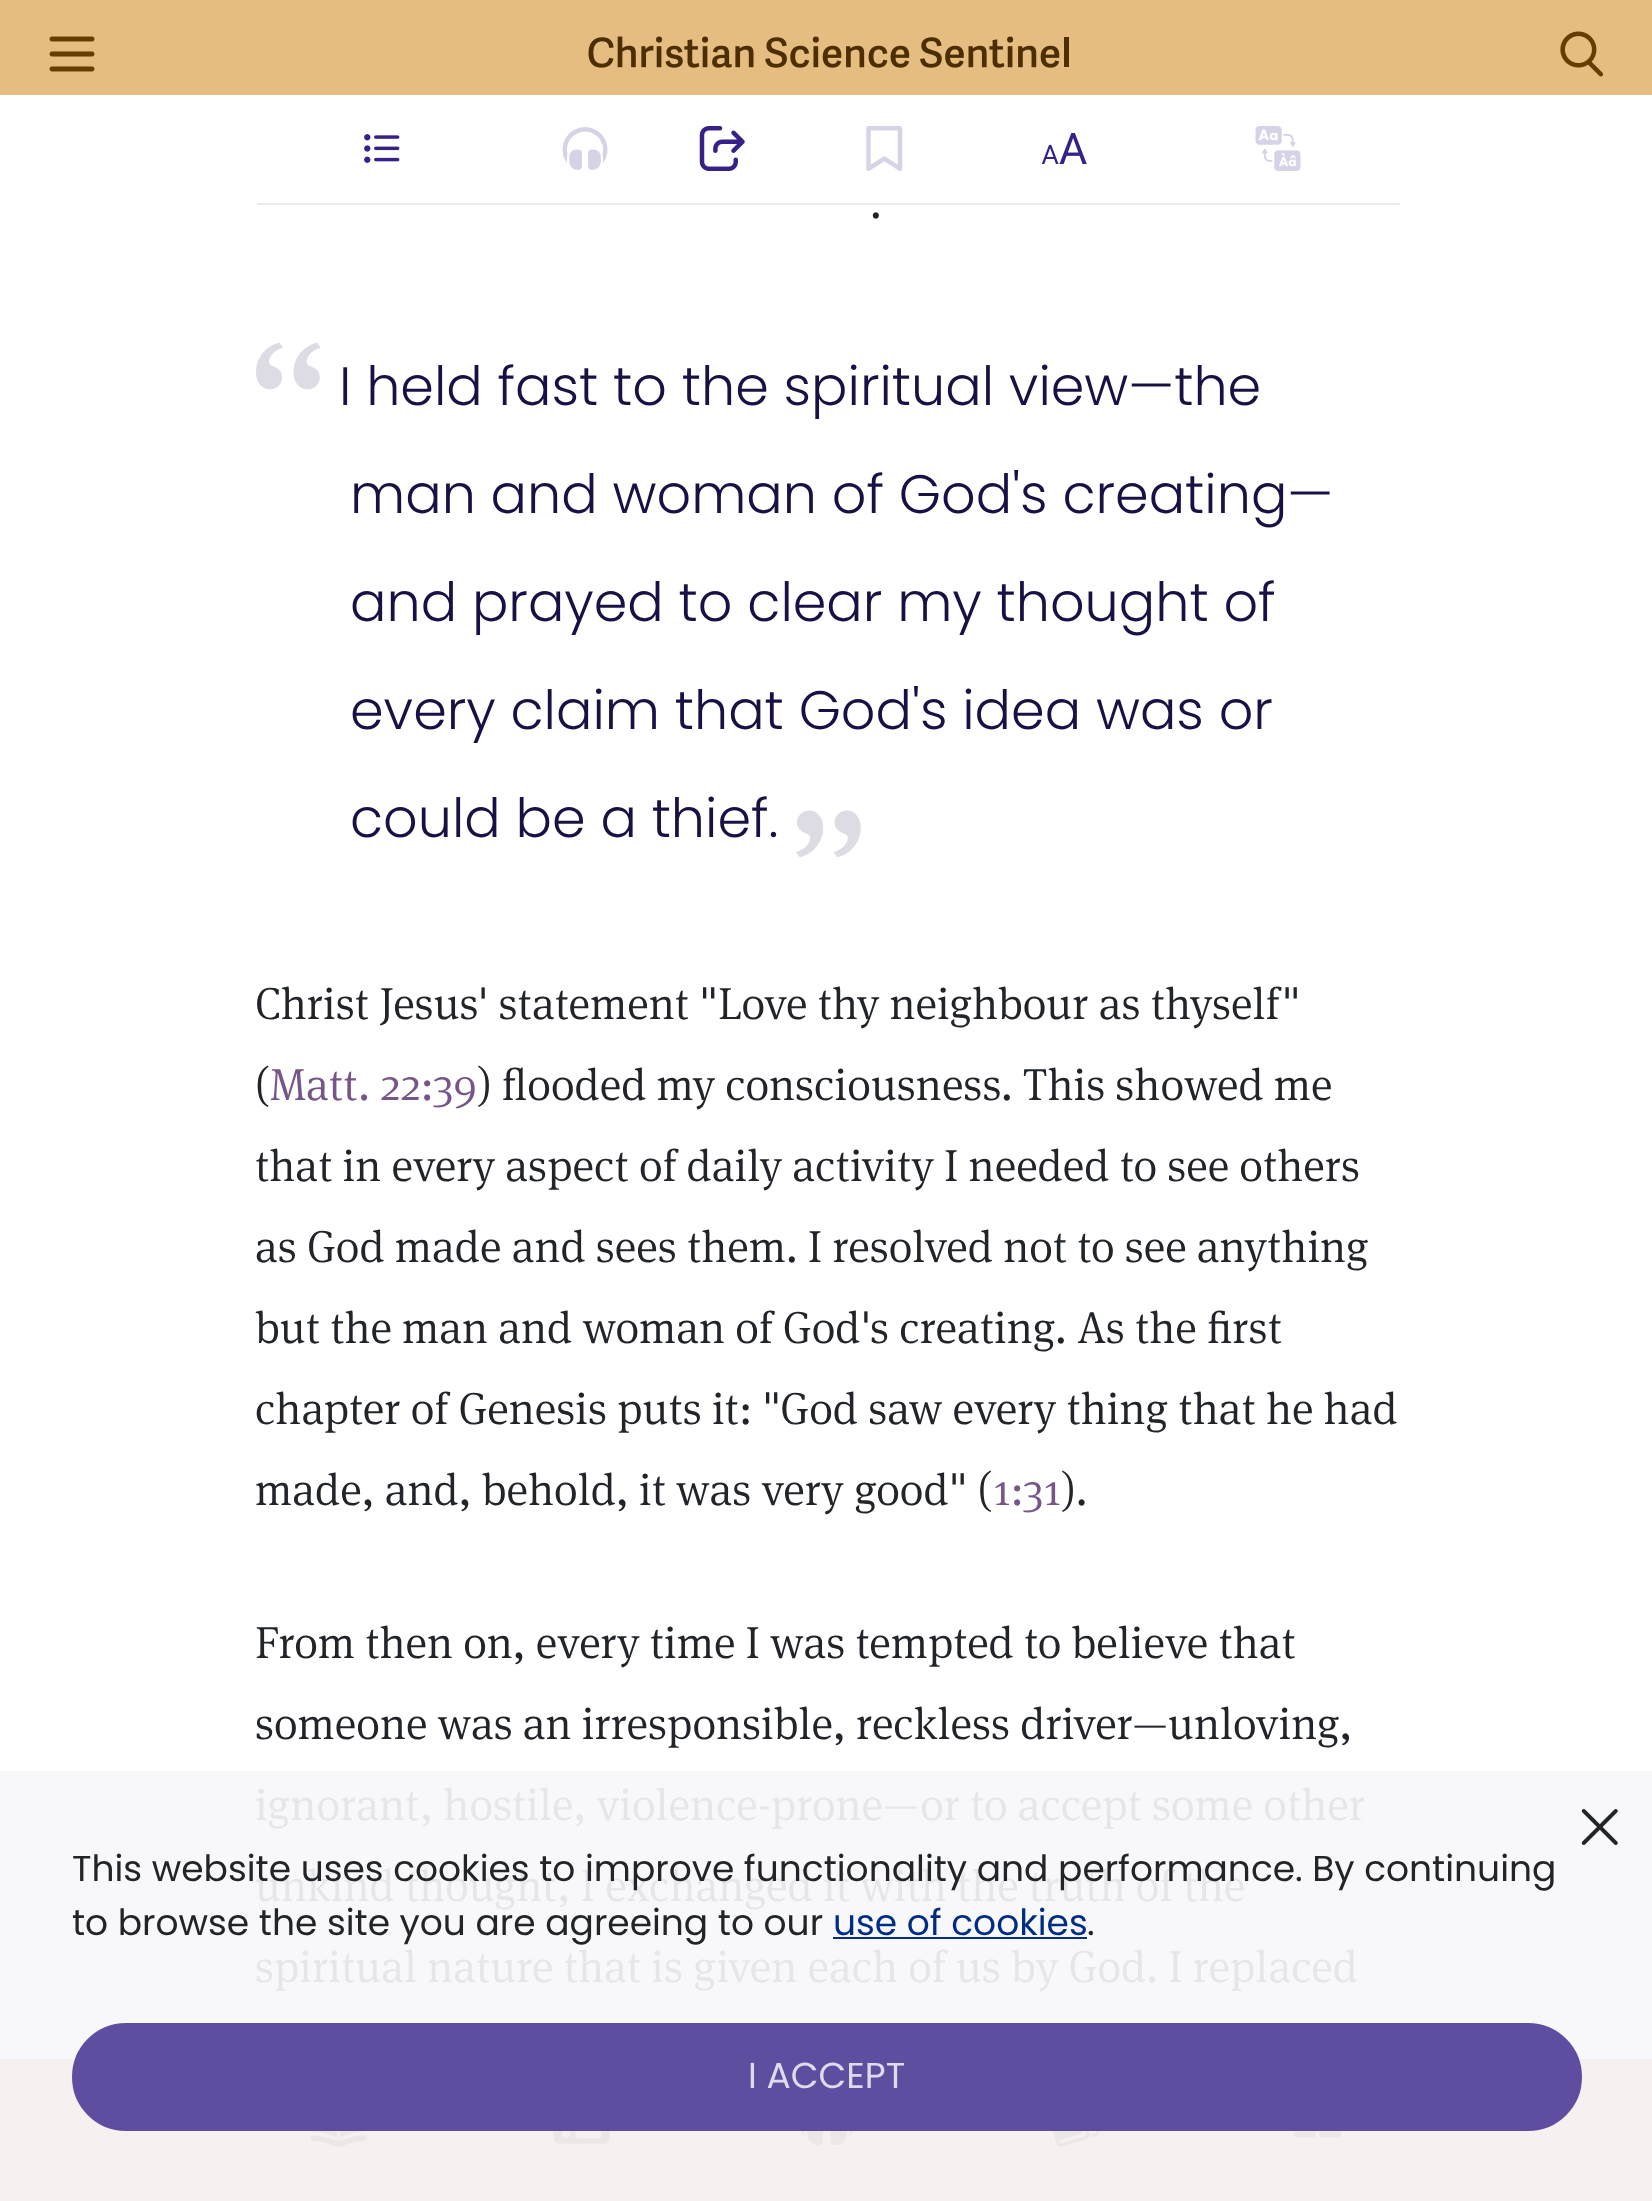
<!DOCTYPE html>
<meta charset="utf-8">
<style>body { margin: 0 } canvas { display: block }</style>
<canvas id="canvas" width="1652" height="2201"></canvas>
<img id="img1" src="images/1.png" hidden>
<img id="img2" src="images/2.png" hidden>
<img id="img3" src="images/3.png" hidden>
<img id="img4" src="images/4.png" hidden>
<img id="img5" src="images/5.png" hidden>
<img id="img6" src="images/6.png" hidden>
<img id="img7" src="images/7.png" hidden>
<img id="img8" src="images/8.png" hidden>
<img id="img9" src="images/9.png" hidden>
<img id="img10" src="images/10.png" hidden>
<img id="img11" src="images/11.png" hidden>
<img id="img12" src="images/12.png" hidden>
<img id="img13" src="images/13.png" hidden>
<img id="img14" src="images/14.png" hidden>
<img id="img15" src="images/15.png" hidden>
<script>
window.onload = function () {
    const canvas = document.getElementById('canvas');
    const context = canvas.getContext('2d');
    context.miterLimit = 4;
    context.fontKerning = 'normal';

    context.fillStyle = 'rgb(255, 255, 255)';
    context.fillRect(0, 0, 1652, 2201);
    context.fillStyle = 'rgb(248, 247, 250)';
    context.fillRect(0, 1771, 1652, 288);
    context.fillStyle = 'rgb(229, 189, 128)';
    context.fillRect(0, 0, 1652, 95);
    context.drawImage(document.getElementById('img1'), 49, 36, 46, 36);
    context.drawImage(document.getElementById('img2'), 588, 36, 481, 32);
    context.drawImage(document.getElementById('img3'), 1560, 31, 44, 46);
    context.fillStyle = 'rgb(235, 233, 243)';
    context.fillRect(257, 203, 1143, 2);
    context.drawImage(document.getElementById('img4'), 364, 134, 36, 29);
    context.drawImage(document.getElementById('img5'), 562, 127, 46, 43);
    context.drawImage(document.getElementById('img6'), 699, 126, 46, 45);
    context.drawImage(document.getElementById('img7'), 866, 126, 37, 45);
    context.drawImage(document.getElementById('img8'), 1041, 133, 46, 31);
    context.drawImage(document.getElementById('img9'), 1255, 126, 46, 45);
    context.drawImage(document.getElementById('img10'), 1581, 1809, 37, 36);
    context.fillStyle = 'rgb(0, 45, 131)';
    context.fillRect(833, 1937, 254, 2);
    context.fillStyle = 'rgb(246, 241, 240)';
    context.fillRect(0, 2059, 1652, 142);
    context.fillStyle = 'rgb(95, 77, 160)';
    context.beginPath();
    context.roundRect(73, 2024, 1508, 106, 53);
    context.fill();
    context.strokeStyle = 'rgb(95, 77, 160)';
    context.lineWidth = 2;
    context.stroke();
    context.drawImage(document.getElementById('img11'), 310, 2131, 57, 16);
    context.drawImage(document.getElementById('img12'), 553, 2131, 57, 13);
    context.drawImage(document.getElementById('img13'), 801, 2131, 52, 15);
    context.drawImage(document.getElementById('img14'), 1052, 2131, 48, 16);
    context.drawImage(document.getElementById('img15'), 1293, 2131, 48, 7);
    context.font = '300 45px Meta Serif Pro';
    context.fillStyle = 'rgb(33, 37, 41)';
    context.fillText('.', 870, 218);
    context.font = '300 180px Meta Serif Pro';
    context.fillStyle = 'rgb(221, 219, 227)';
    context.fillText('“', 246, 468);
    context.font = '300 54px Poppins';
    context.fillStyle = 'rgb(27, 16, 68)';
    context.fillText('I held fast to the spiritual view—the', 339, 405);
    context.fillText('man and woman of God\'s creating—', 350, 513);
    context.fillText('and prayed to clear my thought of', 350, 621);
    context.fillText('every claim that God\'s idea was or', 350, 729);
    context.fillText('could be a thief.', 350, 837);
    context.font = '300 180px Meta Serif Pro';
    context.fillStyle = 'rgb(221, 219, 227)';
    context.fillText('”', 787, 936);
    context.font = '300 45px Meta Serif Pro';
    context.fillStyle = 'rgb(33, 37, 41)';
    context.fillText('Christ Jesus\' statement "Love thy neighbour as thyself"', 255, 1019);
    context.fillText('(', 255, 1100);
    context.fillStyle = 'rgb(119, 85, 136)';
    context.fillText('Matt. 22:39', 270, 1100);
    context.fillStyle = 'rgb(33, 37, 41)';
    context.fillText(') flooded my consciousness. This showed me', 477, 1100);
    context.fillText('that in every aspect of daily activity I needed to see others', 255, 1181);
    context.fillText('as God made and sees them. I resolved not to see anything', 255, 1262);
    context.fillText('but the man and woman of God\'s creating. As the first', 255, 1343);
    context.fillText('chapter of Genesis puts it: "God saw every thing that he had', 255, 1424);
    context.fillText('made, and, behold, it was very good" (', 255, 1505);
    context.fillStyle = 'rgb(119, 85, 136)';
    context.fillText('1:31', 993, 1505);
    context.fillStyle = 'rgb(33, 37, 41)';
    context.fillText(').', 1061, 1505);
    context.fillText('From then on, every time I was tempted to believe that', 255, 1658);
    context.fillText('someone was an irresponsible, reckless driver—unloving,', 255, 1739);
    context.fillStyle = 'rgb(230, 229, 233)';
    context.fillText('ignorant, hostile, violence-prone—or to accept some other', 255, 1820);
    context.fillText('unkind thought, I exchanged it with the truth of the', 255, 1901);
    context.fillText('spiritual nature that is given each of us by God. I replaced', 255, 1982);
    context.font = '36px Poppins';
    context.fillStyle = 'rgb(33, 37, 41)';
    context.fillText('This website uses cookies to improve functionality and performance. By continuing', 72, 1881);
    context.fillText('to browse the site you are agreeing to our', 72, 1935);
    context.fillStyle = 'rgb(0, 45, 131)';
    context.fillText('use of cookies', 833, 1935);
    context.fillStyle = 'rgb(33, 37, 41)';
    context.fillText('.', 1087, 1935);
    context.fillStyle = 'rgb(223, 219, 236)';
    context.fillText('I ACCEPT', 748, 2088);
};
</script>
